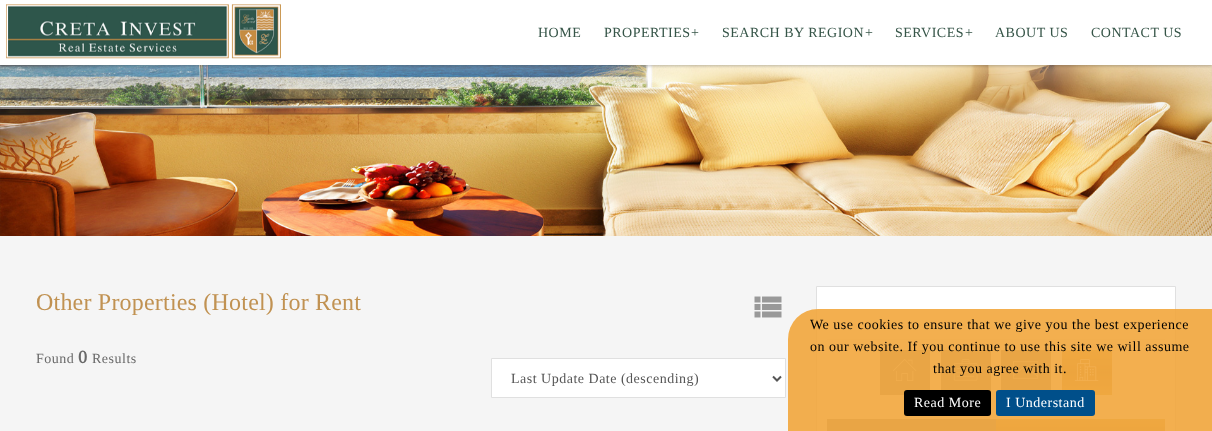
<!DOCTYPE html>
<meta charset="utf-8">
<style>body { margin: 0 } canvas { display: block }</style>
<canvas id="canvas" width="1212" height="431"></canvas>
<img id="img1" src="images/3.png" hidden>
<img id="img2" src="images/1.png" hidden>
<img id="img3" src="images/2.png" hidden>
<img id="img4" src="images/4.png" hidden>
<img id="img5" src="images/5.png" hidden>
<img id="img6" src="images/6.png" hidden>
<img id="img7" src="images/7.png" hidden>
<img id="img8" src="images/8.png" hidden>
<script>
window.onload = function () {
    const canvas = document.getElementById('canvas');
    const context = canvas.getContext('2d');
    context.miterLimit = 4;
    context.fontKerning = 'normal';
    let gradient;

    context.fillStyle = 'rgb(245, 245, 245)';
    context.fillRect(0, 0, 1212, 431);
    context.drawImage(document.getElementById('img1'), 0, 65, 1212, 171);
    context.drawImage(document.getElementById('img2'), 0, 65, 1212, 61);
    context.fillStyle = 'rgba(0, 0, 0, 0.25)';
    context.filter = 'blur(1.5px)';
    context.beginPath();
    context.rect(0, 1, 1212, 65);
    context.fill();
    context.filter = 'none';
    context.fillStyle = 'rgb(255, 255, 255)';
    context.fillRect(0, 0, 1212, 65);
    context.drawImage(document.getElementById('img3'), 6, 4, 275, 55);
    context.drawImage(document.getElementById('img4'), 754, 296, 28, 22);
    context.beginPath();
    context.rect(491.5, 358.5, 294, 39);
    context.fill();
    context.strokeStyle = 'rgb(224, 224, 224)';
    context.stroke();
    context.beginPath();
    context.moveTo(773, 376.5);
    context.lineTo(777, 380.5);
    context.lineTo(781, 376.5);
    context.strokeStyle = 'rgb(85, 85, 85)';
    context.lineWidth = 2;
    context.stroke();
    context.beginPath();
    context.rect(816.5, 286.5, 359, 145);
    context.fill();
    context.strokeStyle = 'rgb(224, 224, 224)';
    context.lineWidth = 1;
    context.stroke();
    context.fillStyle = 'rgb(238, 238, 238)';
    context.fillRect(827, 339, 338, 1);
    context.fillStyle = 'rgb(150, 150, 150)';
    context.fillRect(880, 350, 50, 45);
    context.drawImage(document.getElementById('img5'), 892, 359, 25, 22);
    context.fillRect(941, 350, 50, 43);
    context.drawImage(document.getElementById('img6'), 953, 359, 25, 22);
    context.fillRect(1001, 350, 50, 40);
    context.drawImage(document.getElementById('img7'), 1013, 361, 26, 18);
    gradient = context.createLinearGradient(1087, 395, 1087, 350);
    gradient.addColorStop(0, 'rgb(216, 180, 104)');
    gradient.addColorStop(0.5, 'rgb(193, 146, 82)');
    gradient.addColorStop(1, 'rgb(216, 180, 104)');
    context.fillStyle = gradient;
    context.fillRect(1062, 350, 50, 45);
    context.drawImage(document.getElementById('img8'), 1074, 359, 25, 22);
    context.fillStyle = 'rgb(150, 150, 150)';
    context.fillRect(827, 419, 169, 12);
    gradient = context.createLinearGradient(1081, 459, 1081, 419);
    gradient.addColorStop(0, 'rgb(216, 180, 104)');
    gradient.addColorStop(0.5, 'rgb(193, 146, 82)');
    gradient.addColorStop(1, 'rgb(216, 180, 104)');
    context.fillStyle = gradient;
    context.fillRect(996, 419, 169, 12);
    context.fillStyle = 'rgba(242, 166, 60, 0.9)';
    context.beginPath();
    context.roundRect(788, 309, 424, 122, [30, 0, 0, 0]);
    context.fill();
    context.fillStyle = 'rgb(0, 0, 0)';
    context.beginPath();
    context.roundRect(904, 390, 87, 26, 3);
    context.fill();
    context.fillStyle = 'rgb(0, 79, 138)';
    context.beginPath();
    context.roundRect(996, 390, 99, 26, 3);
    context.fill();
    context.letterSpacing = '0.5px';
    context.font = '14px Tinos';
    context.fillStyle = 'rgb(54, 85, 72)';
    context.fillText('HOME', 538, 37);
    context.fillText('PROPERTIES', 604, 37);
    context.fillText('+', 691, 37);
    context.fillText('SEARCH BY REGION', 722, 37);
    context.fillText('+', 865, 37);
    context.fillText('SERVICES', 895, 37);
    context.fillText('+', 965, 37);
    context.fillText('ABOUT US', 995, 37);
    context.fillText('CONTACT US', 1091, 37);
    context.letterSpacing = '0.2px';
    context.font = '24px Tinos';
    context.fillStyle = 'rgb(193, 146, 82)';
    context.fillText('Other Properties (Hotel) for Rent', 36, 310);
    context.letterSpacing = '0.5px';
    context.font = '14px Tinos';
    context.fillStyle = 'rgb(105, 105, 105)';
    context.fillText('Found', 36, 363);
    context.font = 'bold 18px Tinos';
    context.fillText('0', 78, 363);
    context.font = '14px Tinos';
    context.fillText('Results', 92, 363);
    context.fillStyle = 'rgb(85, 85, 85)';
    context.fillText('Last Update Date (descending)', 511, 383);
    context.fillStyle = 'rgb(0, 0, 0)';
    context.fillText('We use cookies to ensure that we give you the best experience', 810, 329);
    context.fillText('on our website. If you continue to use this site we will assume', 810, 351);
    context.fillText('that you agree with it.', 933, 373);
    context.fillStyle = 'rgb(255, 255, 255)';
    context.fillText('Read More', 914, 407);
    context.fillText('I Understand', 1006, 407);
};
</script>
